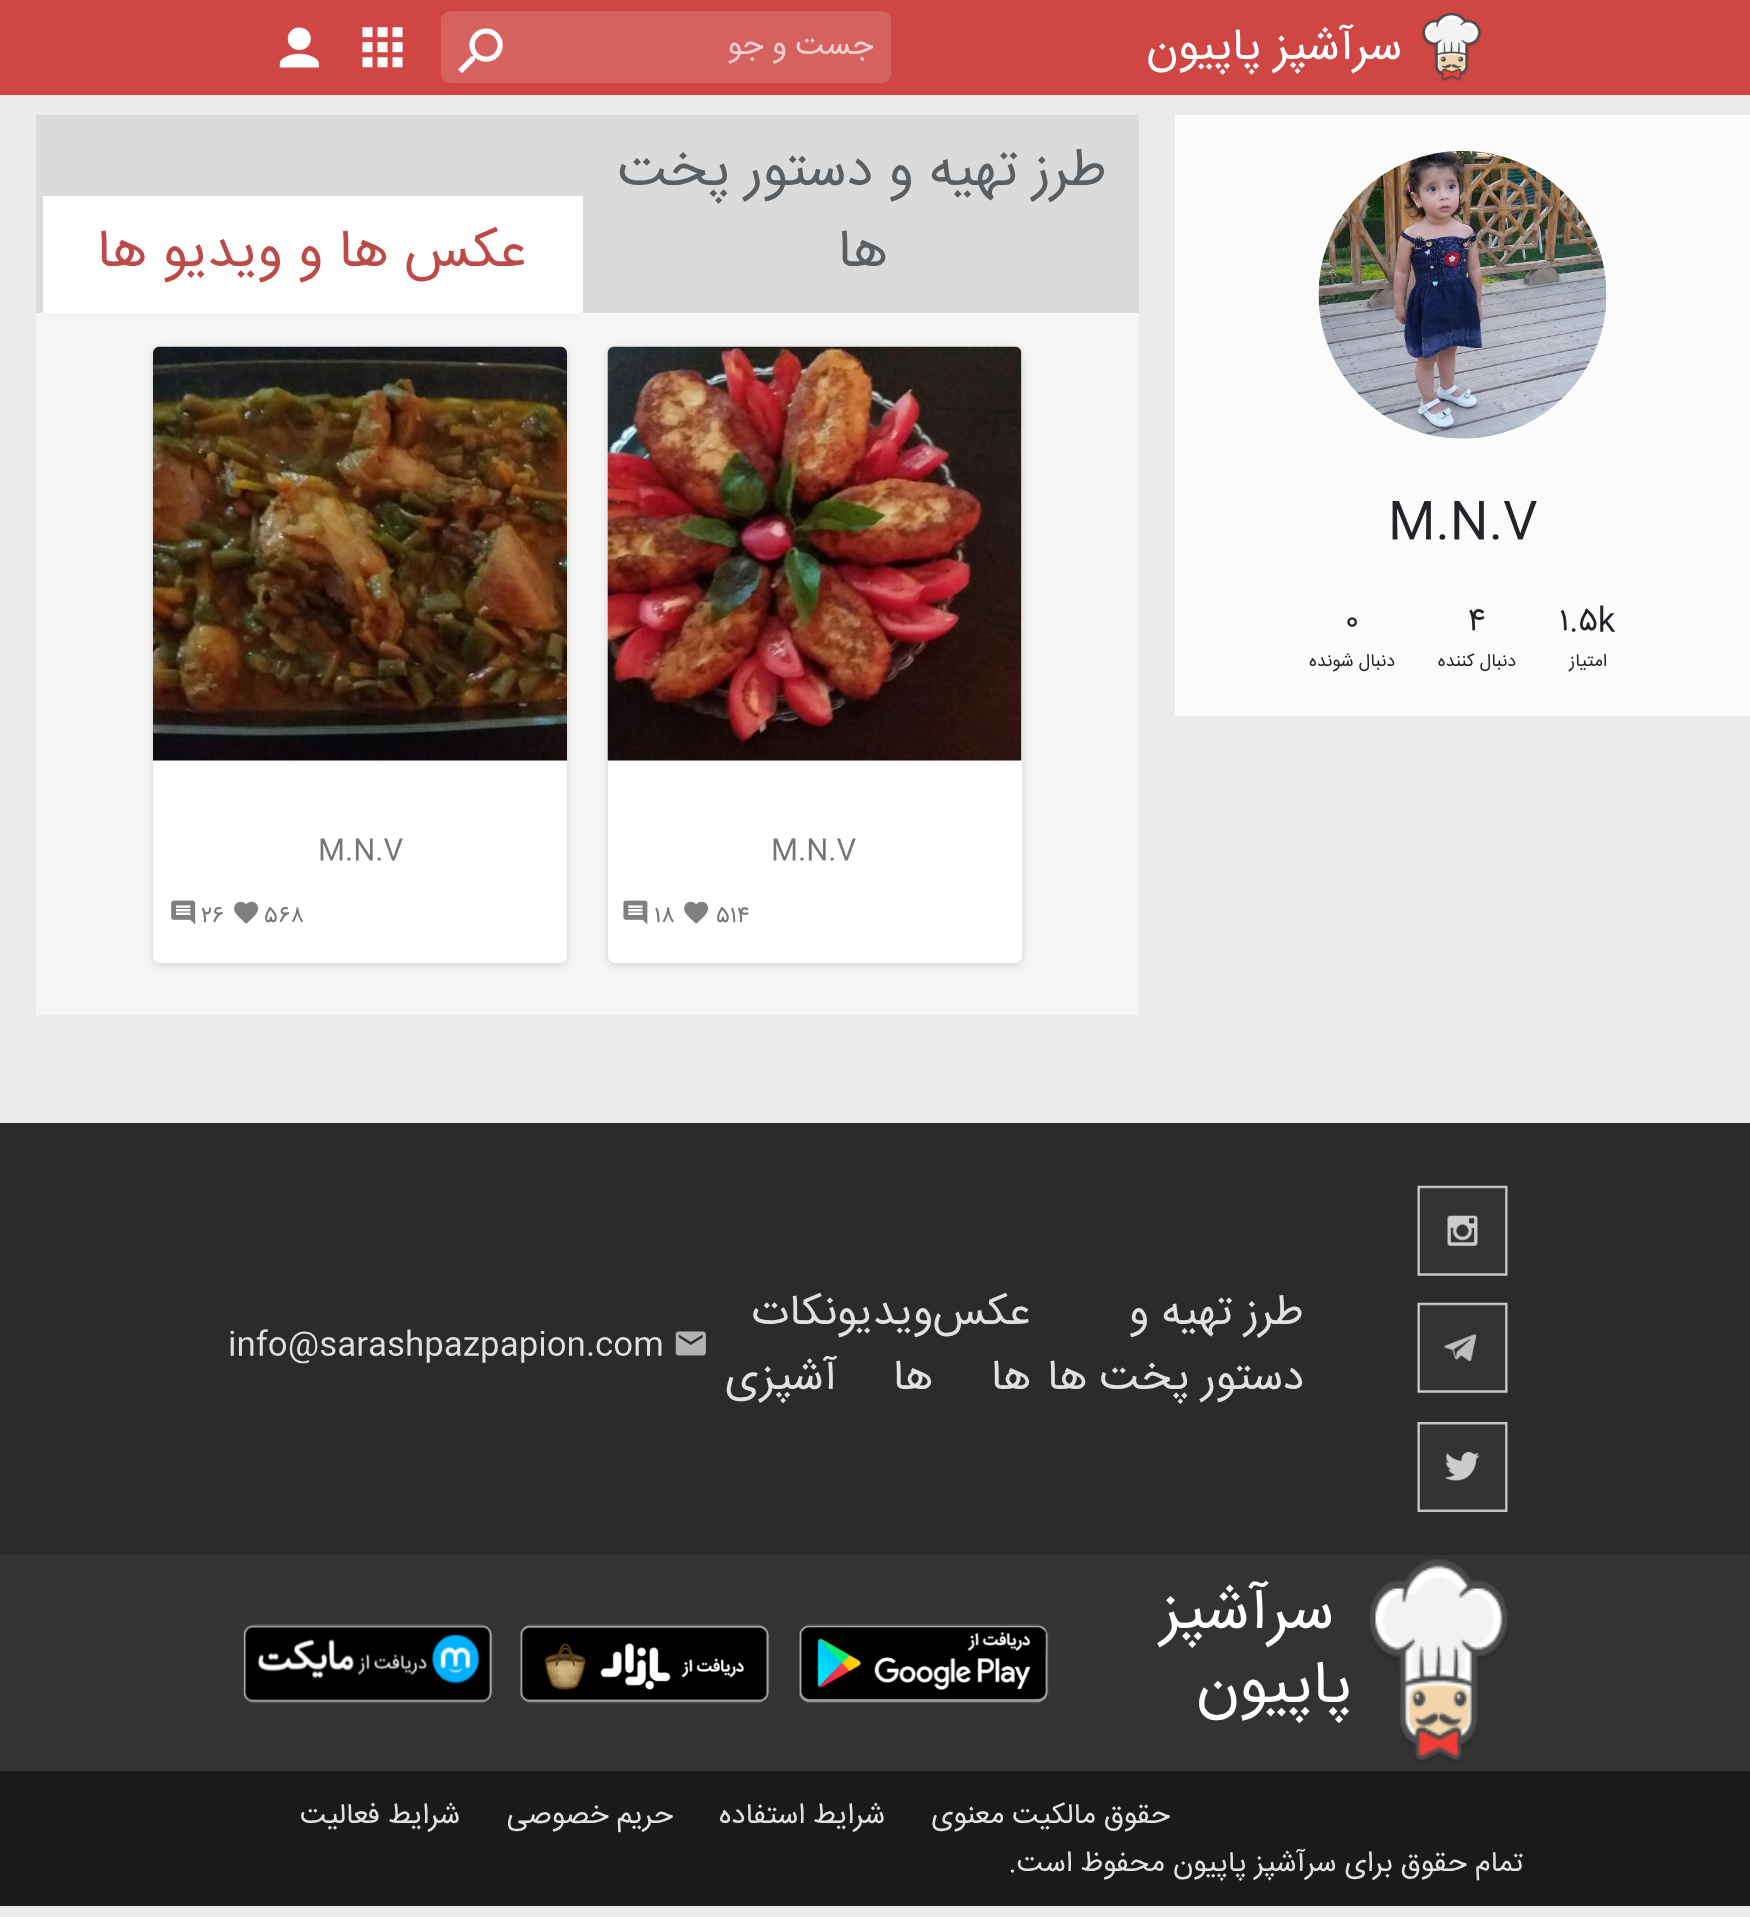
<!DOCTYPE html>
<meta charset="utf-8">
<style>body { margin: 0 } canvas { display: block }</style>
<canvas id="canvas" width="1750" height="1917"></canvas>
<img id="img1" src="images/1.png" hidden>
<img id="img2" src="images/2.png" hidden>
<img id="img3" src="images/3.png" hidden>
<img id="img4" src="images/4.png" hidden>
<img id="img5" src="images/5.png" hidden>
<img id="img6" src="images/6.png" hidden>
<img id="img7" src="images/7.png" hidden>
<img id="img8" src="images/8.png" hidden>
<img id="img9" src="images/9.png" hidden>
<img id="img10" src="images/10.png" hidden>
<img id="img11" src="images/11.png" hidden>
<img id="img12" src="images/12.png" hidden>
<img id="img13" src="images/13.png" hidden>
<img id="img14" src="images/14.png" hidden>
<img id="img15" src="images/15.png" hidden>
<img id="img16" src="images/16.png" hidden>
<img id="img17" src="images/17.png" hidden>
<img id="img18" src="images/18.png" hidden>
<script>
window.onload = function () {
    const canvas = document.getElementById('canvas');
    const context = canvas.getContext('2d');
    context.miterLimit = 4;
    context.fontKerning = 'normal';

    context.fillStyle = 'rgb(235, 235, 235)';
    context.fillRect(0, 0, 1750, 1917);
    context.fillStyle = 'rgb(207, 70, 68)';
    context.fillRect(0, 0, 1750, 95);
    context.drawImage(document.getElementById('img1'), 1421, 12, 61, 70);
    context.fillStyle = 'rgb(214, 98, 96)';
    context.beginPath();
    context.roundRect(441, 11, 450, 72, 9);
    context.fill();
    context.drawImage(document.getElementById('img2'), 457, 28, 47, 46);
    context.drawImage(document.getElementById('img3'), 362, 27, 41, 41);
    context.drawImage(document.getElementById('img4'), 279, 27, 41, 41);
    context.fillStyle = 'rgb(251, 251, 251)';
    context.fillRect(1175, 115, 575, 601);
    context.drawImage(document.getElementById('img5'), 1318, 150, 289, 289);
    context.fillStyle = 'rgb(219, 219, 219)';
    context.fillRect(36, 115, 1103, 198);
    context.fillStyle = 'rgb(255, 255, 255)';
    context.fillRect(43, 196, 540, 117);
    context.fillStyle = 'rgb(245, 245, 245)';
    context.fillRect(36, 313, 1103, 702);
    context.fillStyle = 'rgba(0, 0, 0, 0.14)';
    context.filter = 'blur(4.5px)';
    context.beginPath();
    context.roundRect(608, 349, 414, 616, 7);
    context.fill();
    context.filter = 'none';
    context.fillStyle = 'rgb(255, 255, 255)';
    context.beginPath();
    context.roundRect(608, 347, 414, 616, 7);
    context.fill();
    context.drawImage(document.getElementById('img6'), 607, 346, 415, 415);
    context.drawImage(document.getElementById('img7'), 684, 901, 25, 23);
    context.drawImage(document.getElementById('img8'), 623, 900, 25, 25);
    context.fillStyle = 'rgba(0, 0, 0, 0.14)';
    context.filter = 'blur(4.5px)';
    context.beginPath();
    context.roundRect(153, 349, 414, 616, 7);
    context.fill();
    context.filter = 'none';
    context.fillStyle = 'rgb(255, 255, 255)';
    context.beginPath();
    context.roundRect(153, 347, 414, 616, 7);
    context.fill();
    context.drawImage(document.getElementById('img9'), 153, 346, 414, 415);
    context.drawImage(document.getElementById('img7'), 234, 901, 25, 23);
    context.drawImage(document.getElementById('img10'), 171, 900, 25, 25);
    context.fillStyle = 'rgb(43, 43, 43)';
    context.fillRect(0, 1123, 1750, 432);
    context.drawImage(document.getElementById('img11'), 1417, 1185, 91, 91);
    context.drawImage(document.getElementById('img12'), 1417, 1302, 91, 91);
    context.drawImage(document.getElementById('img13'), 1417, 1422, 91, 90);
    context.drawImage(document.getElementById('img14'), 675, 1331, 31, 25);
    context.fillStyle = 'rgb(51, 51, 51)';
    context.fillRect(0, 1555, 1750, 216);
    context.drawImage(document.getElementById('img15'), 1369, 1559, 139, 204);
    context.drawImage(document.getElementById('img16'), 799, 1624, 250, 80);
    context.drawImage(document.getElementById('img17'), 520, 1624, 250, 80);
    context.drawImage(document.getElementById('img18'), 243, 1624, 250, 80);
    context.fillStyle = 'rgb(24, 26, 27)';
    context.fillRect(0, 1771, 1750, 135);
    context.direction = 'rtl';
    context.font = '45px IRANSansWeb';
    context.fillStyle = 'rgb(255, 255, 255)';
    context.fillText('سرآشپز پاپیون', 1402, 59);
    context.save();
    context.beginPath();
    context.rect(520, 20, 353, 54);
    context.clip();
    context.font = '31.5px IRANSansWeb';
    context.fillStyle = 'rgb(243, 208, 207)';
    context.fillText('جست و جو', 873, 54);
    context.restore();
    context.direction = 'ltr';
    context.font = '50.5px IRANSansWeb';
    context.fillStyle = 'rgb(33, 37, 41)';
    context.fillText('M.N.V', 1388, 537);
    context.font = '32.4px IRANSansWeb';
    context.fillText('۱.۵k', 1559, 630);
    context.direction = 'rtl';
    context.font = '18px IRANSansWeb';
    context.fillText('امتیاز', 1607, 666);
    context.direction = 'ltr';
    context.font = '32.4px IRANSansWeb';
    context.fillText('۴', 1468, 630);
    context.direction = 'rtl';
    context.font = '18px IRANSansWeb';
    context.fillText('دنبال کننده', 1516, 666);
    context.direction = 'ltr';
    context.font = '32.4px IRANSansWeb';
    context.fillText('۰', 1345, 630);
    context.direction = 'rtl';
    context.font = '18px IRANSansWeb';
    context.fillText('دنبال شونده', 1395, 666);
    context.font = '54px IRANSansWeb';
    context.fillStyle = 'rgb(89, 95, 99)';
    context.fillText('طرز تهیه و دستور پخت', 1107, 185);
    context.fillText('ها', 888, 266);
    context.fillStyle = 'rgb(189, 74, 72)';
    context.fillText('عکس ها و ویدیو ها', 527, 266);
    context.direction = 'ltr';
    context.font = '28.75px IRANSansWeb';
    context.fillStyle = 'rgb(117, 117, 117)';
    context.fillText('M.N.V', 771, 859);
    context.font = '23px IRANSansWeb';
    context.fillText('۵۱۴', 716, 922);
    context.fillText('۱۸', 654, 922);
    context.font = '28.75px IRANSansWeb';
    context.fillText('M.N.V', 318, 859);
    context.font = '23px IRANSansWeb';
    context.fillText('۵۶۸', 265, 922);
    context.fillText('۲۶', 201, 922);
    context.direction = 'rtl';
    context.font = '43.25px IRANSansWeb';
    context.fillStyle = 'rgb(225, 225, 225)';
    context.fillText('طرز تهیه و', 1304, 1324);
    context.fillText('دستور پخت ها', 1304, 1389);
    context.fillText('عکس', 1031, 1324);
    context.fillText('ها', 1031, 1389);
    context.fillText('ویدیو', 933, 1324);
    context.fillText('ها', 933, 1389);
    context.fillText('نکات', 837, 1324);
    context.fillText('آشپزی', 837, 1389);
    context.direction = 'ltr';
    context.font = '32.4px IRANSansWeb';
    context.fillText('info@sarashpazpapion.com', 228, 1354);
    context.direction = 'rtl';
    context.font = '61px IRANSansWeb';
    context.fillStyle = 'rgb(255, 255, 255)';
    context.fillText('سرآشپز', 1334, 1628);
    context.fillText('پاپیون', 1352, 1702);
    context.font = '28.75px IRANSansWeb';
    context.fillStyle = 'rgb(225, 225, 225)';
    context.fillText('حقوق مالکیت معنوی', 1170, 1823);
    context.fillText('شرایط استفاده', 885, 1823);
    context.fillText('حریم خصوصی', 673, 1823);
    context.fillText('شرایط فعالیت', 460, 1823);
    context.fillText('تمام حقوق برای سرآشپز پاپیون محفوظ است.', 1523, 1871);
};
</script>
